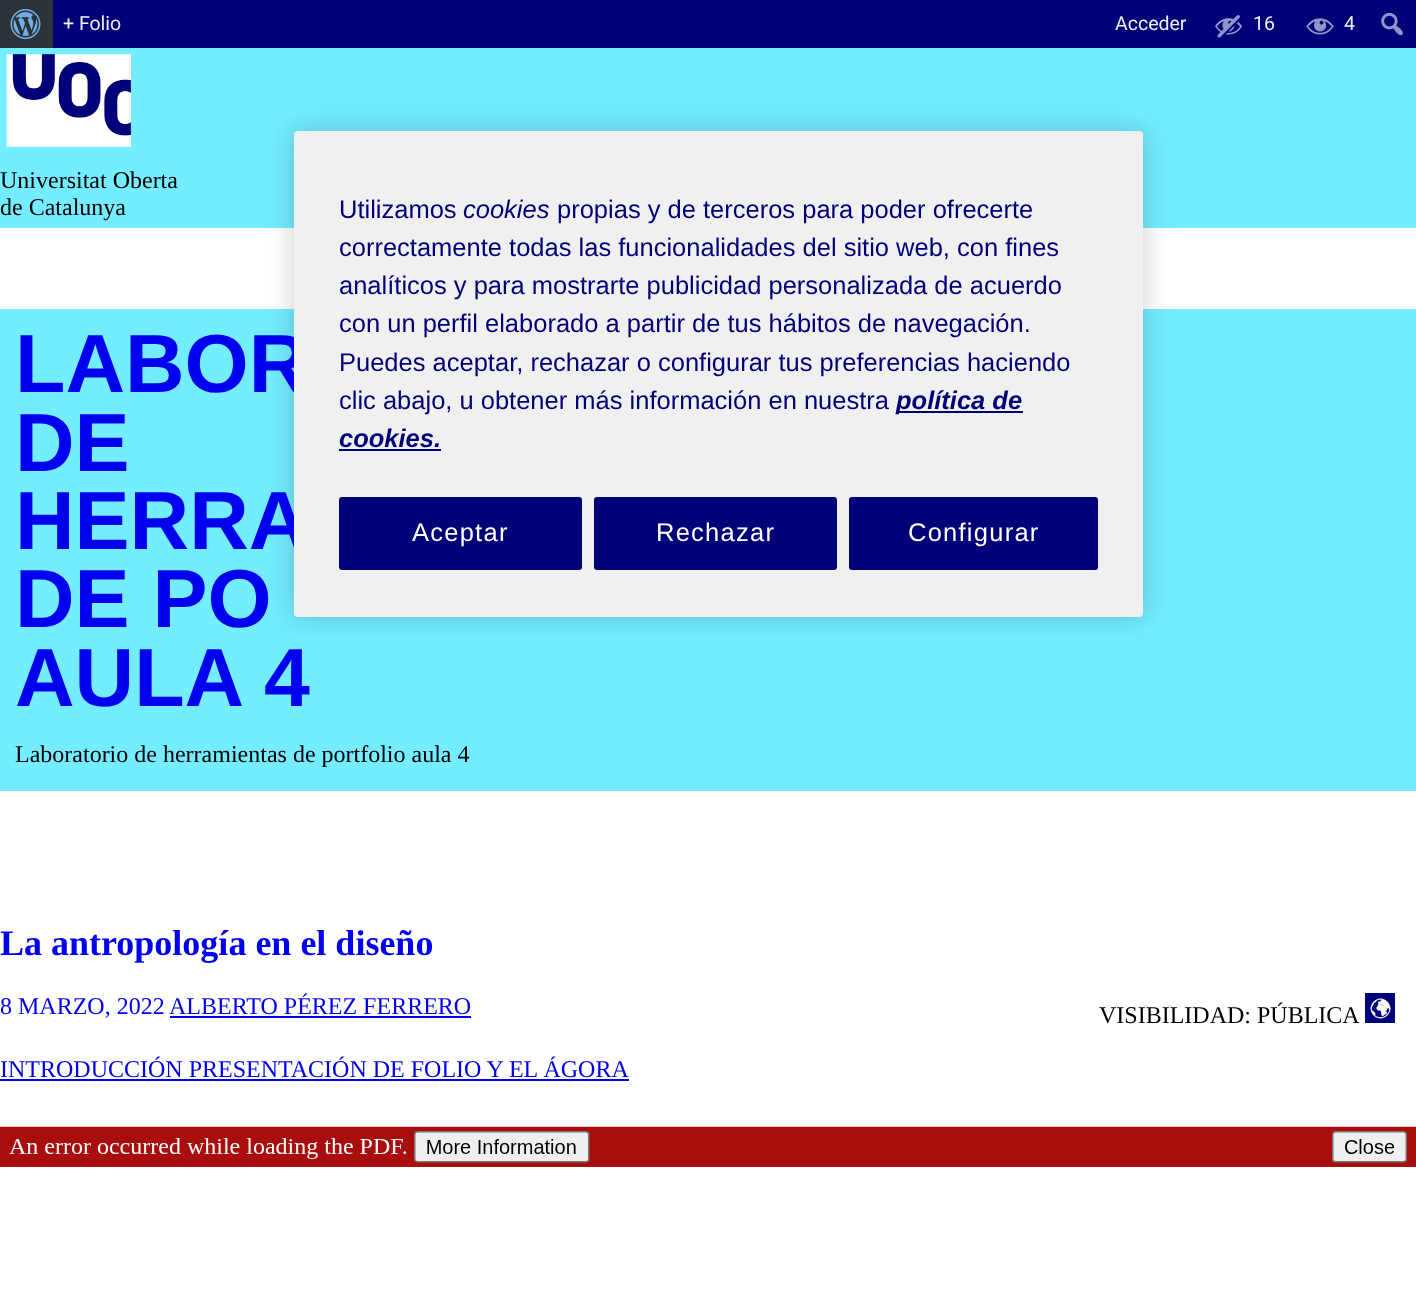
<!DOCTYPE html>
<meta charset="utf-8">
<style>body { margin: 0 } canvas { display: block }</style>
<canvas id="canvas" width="1416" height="1306"></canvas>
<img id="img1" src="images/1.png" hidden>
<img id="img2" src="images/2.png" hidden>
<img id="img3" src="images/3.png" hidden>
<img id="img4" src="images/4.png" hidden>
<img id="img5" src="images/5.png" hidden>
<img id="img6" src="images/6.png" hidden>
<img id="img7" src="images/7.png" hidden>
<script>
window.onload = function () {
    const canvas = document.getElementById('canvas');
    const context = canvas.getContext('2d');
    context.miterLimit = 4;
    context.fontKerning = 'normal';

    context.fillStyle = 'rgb(255, 255, 255)';
    context.fillRect(0, 0, 1416, 1306);
    context.fillStyle = 'rgb(0, 0, 120)';
    context.fillRect(53, 0, 1363, 48);
    context.fillStyle = 'rgb(44, 51, 56)';
    context.fillRect(0, 0, 53, 48);
    context.drawImage(document.getElementById('img1'), 10, 9, 31, 30);
    context.drawImage(document.getElementById('img2'), 1215, 15, 27, 23);
    context.drawImage(document.getElementById('img3'), 1306, 18, 28, 17);
    context.drawImage(document.getElementById('img4'), 1381, 12, 22, 24);
    context.fillStyle = 'rgb(115, 237, 255)';
    context.fillRect(0, 48, 1416, 180);
    context.drawImage(document.getElementById('img5'), 6, 54, 125, 93);
    context.fillRect(0, 309, 1416, 482);
    context.fillStyle = 'rgb(0, 0, 238)';
    context.fillRect(170, 1016, 301, 2);
    context.drawImage(document.getElementById('img6'), 1365, 993, 30, 30);
    context.fillRect(0, 1079, 629, 2);
    context.drawImage(document.getElementById('img7'), 0, 1126, 1416, 41);
    context.fillStyle = 'rgba(0, 0, 0, 0.2)';
    context.filter = 'blur(13.5px)';
    context.beginPath();
    context.roundRect(294, 131, 849, 486, 4);
    context.fill();
    context.filter = 'none';
    context.font = '19.5px Roboto';
    context.fillStyle = 'rgb(240, 240, 241)';
    context.fillText('+ Folio', 63, 30);
    context.fillText('Acceder', 1115, 30);
    context.fillText('16', 1253, 30);
    context.fillText('4', 1344, 30);
    context.font = '24px Liberation Serif';
    context.fillStyle = 'rgb(0, 0, 0)';
    context.fillText('Universitat Oberta', 0, 188);
    context.fillText('de Catalunya', 0, 215);
    context.font = 'bold 82.5px Liberation Sans';
    context.fillStyle = 'rgb(0, 0, 238)';
    context.fillText('LABOR', 15, 392);
    context.fillText('DE', 15, 471);
    context.fillText('HERRA', 15, 549);
    context.fillText('DE PO', 15, 627);
    context.fillText('AULA 4', 15, 706);
    context.font = '24px Liberation Serif';
    context.fillStyle = 'rgb(0, 0, 0)';
    context.fillText('Laboratorio de herramientas de portfolio aula 4', 15, 762);
    context.font = 'bold 36px Liberation Serif';
    context.fillStyle = 'rgb(0, 0, 238)';
    context.fillText('La antropología en el diseño', 0, 955);
    context.font = '24px Liberation Serif';
    context.fillText('8 MARZO, 2022', 0, 1014);
    context.fillText('ALBERTO PÉREZ FERRERO', 169, 1014);
    context.fillStyle = 'rgb(0, 0, 0)';
    context.fillText('VISIBILIDAD: PÚBLICA', 1099, 1023);
    context.fillStyle = 'rgb(0, 0, 238)';
    context.fillText('INTRODUCCIÓN PRESENTACIÓN DE FOLIO Y EL ÁGORA', 0, 1077);
    context.fillStyle = 'rgb(240, 240, 240)';
    context.beginPath();
    context.roundRect(294, 131, 849, 486, 4);
    context.fill();
    context.font = '25.5px Liberation Sans';
    context.fillStyle = 'rgb(0, 0, 120)';
    context.fillText('Utilizamos', 339, 218);
    context.font = 'italic 25.5px Liberation Sans';
    context.fillText('cookies', 463, 218);
    context.font = '25.5px Liberation Sans';
    context.fillText('propias y de terceros para poder ofrecerte', 557, 218);
    context.fillText('correctamente todas las funcionalidades del sitio web, con fines', 339, 256);
    context.fillText('analíticos y para mostrarte publicidad personalizada de acuerdo', 339, 294);
    context.fillText('con un perfil elaborado a partir de tus hábitos de navegación.', 339, 332);
    context.fillText('Puedes aceptar, rechazar o configurar tus preferencias haciendo', 339, 371);
    context.fillText('clic abajo, u obtener más información en nuestra', 339, 409);
    context.fillRect(896, 411, 127, 2);
    context.font = 'italic bold 25.5px Liberation Sans';
    context.fillText('política de', 896, 409);
    context.fillText('cookies.', 339, 447);
    context.fillRect(339, 449, 102, 2);
    context.beginPath();
    context.roundRect(340, 498, 241, 71, 2);
    context.fill();
    context.strokeStyle = 'rgb(0, 0, 120)';
    context.lineWidth = 2;
    context.stroke();
    context.letterSpacing = '1.25px';
    context.font = '25.5px Liberation Sans';
    context.fillStyle = 'rgb(255, 255, 255)';
    context.fillText('Aceptar', 412, 541);
    context.fillStyle = 'rgb(0, 0, 120)';
    context.beginPath();
    context.roundRect(595, 498, 241, 71, 2);
    context.fill();
    context.stroke();
    context.fillStyle = 'rgb(255, 255, 255)';
    context.fillText('Rechazar', 656, 541);
    context.fillStyle = 'rgb(0, 0, 120)';
    context.beginPath();
    context.roundRect(850, 498, 247, 71, 2);
    context.fill();
    context.stroke();
    context.fillStyle = 'rgb(255, 255, 255)';
    context.fillText('Configurar', 908, 541);
};
</script>
